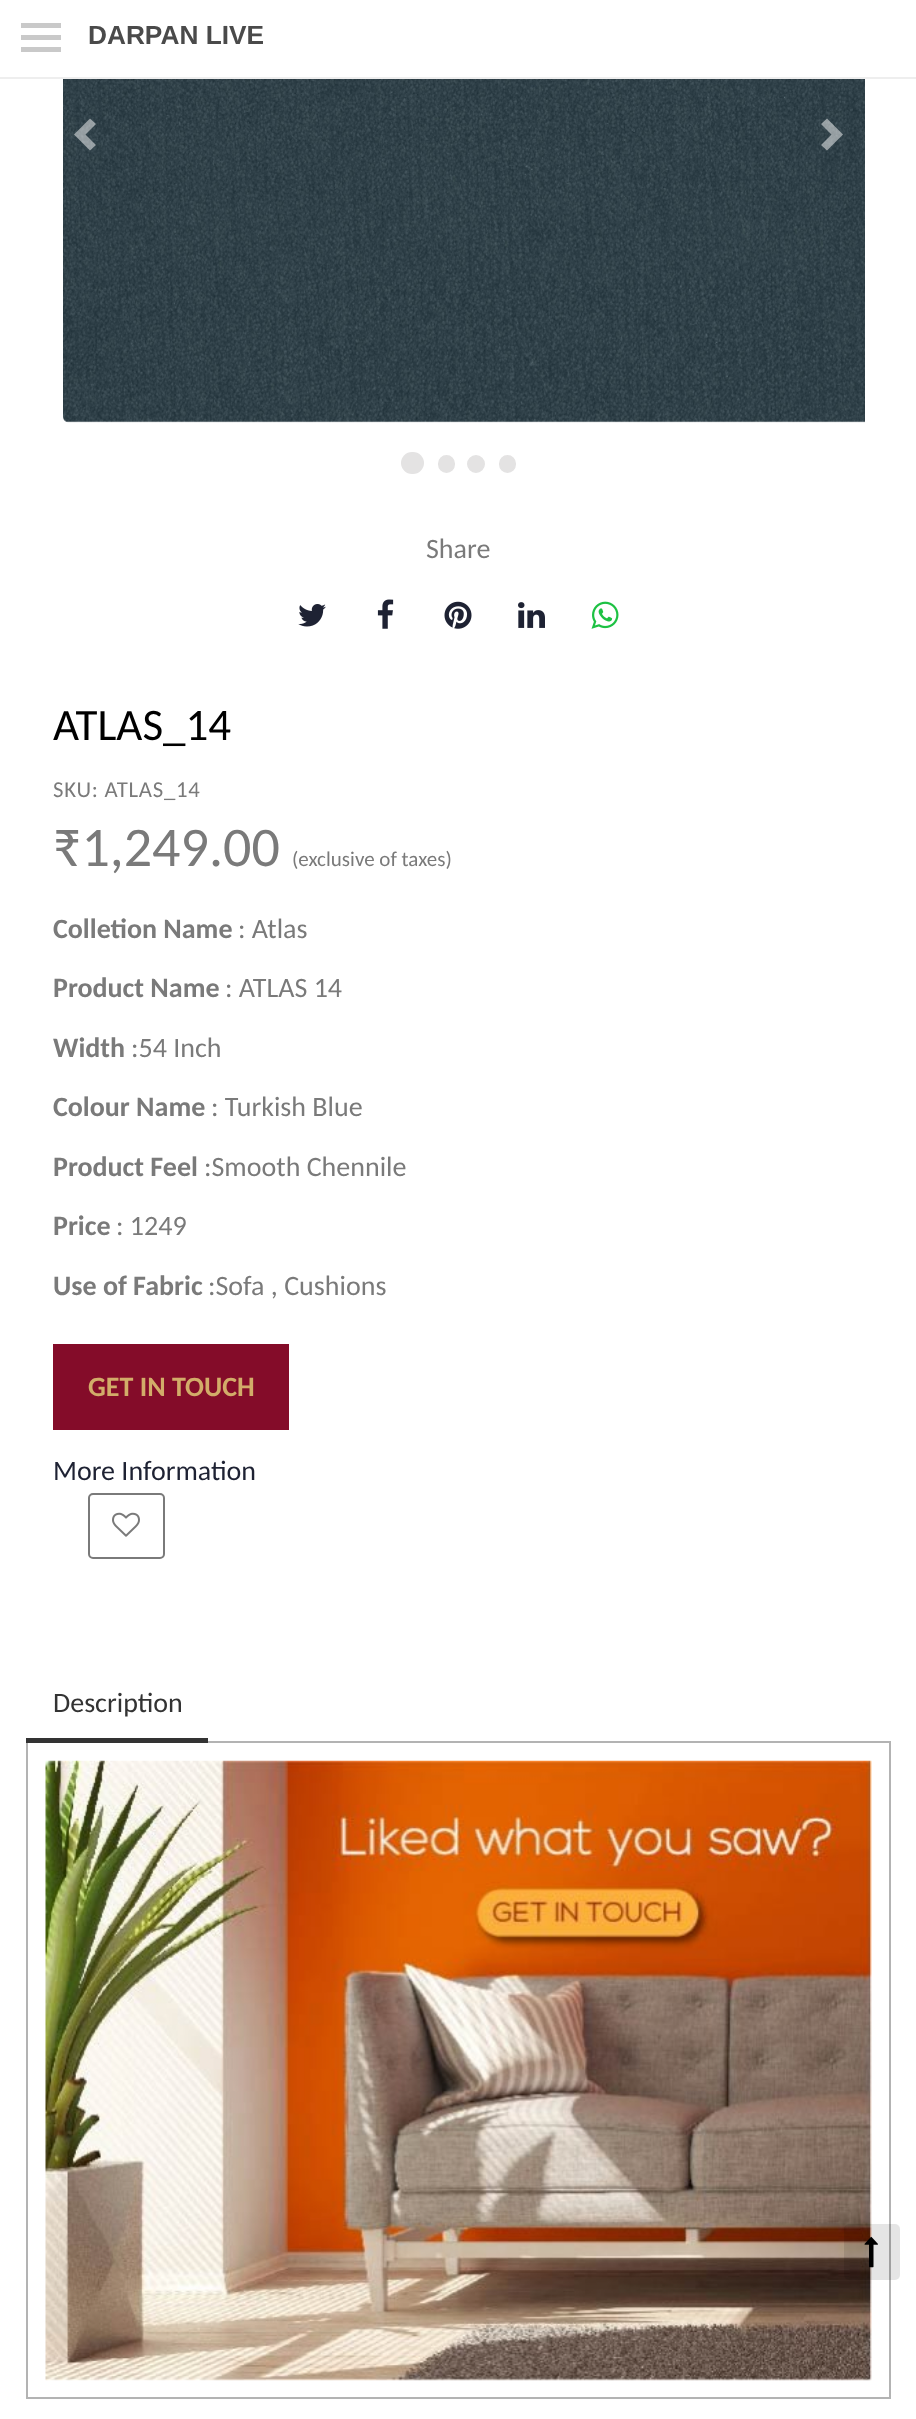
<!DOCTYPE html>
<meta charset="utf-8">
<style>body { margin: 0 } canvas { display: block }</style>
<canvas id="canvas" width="916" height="2419"></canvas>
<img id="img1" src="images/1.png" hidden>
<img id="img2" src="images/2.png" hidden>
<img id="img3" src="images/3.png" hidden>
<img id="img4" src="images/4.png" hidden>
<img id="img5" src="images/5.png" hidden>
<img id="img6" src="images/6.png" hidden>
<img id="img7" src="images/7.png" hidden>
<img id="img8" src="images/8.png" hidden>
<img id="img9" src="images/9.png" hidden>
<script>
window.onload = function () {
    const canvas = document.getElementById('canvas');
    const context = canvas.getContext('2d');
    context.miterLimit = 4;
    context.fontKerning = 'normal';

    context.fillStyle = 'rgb(255, 255, 255)';
    context.fillRect(0, 0, 916, 2419);
    context.fillStyle = 'rgb(201, 201, 201)';
    context.fillRect(21, 35, 40, 5);
    context.fillRect(21, 23, 40, 5);
    context.fillRect(21, 47, 40, 5);
    context.fillStyle = 'rgb(238, 238, 238)';
    context.fillRect(0, 77, 916, 2);
    context.drawImage(document.getElementById('img1'), 63, 79, 802, 344);
    context.fillStyle = 'rgba(255, 255, 255, 0.5)';
    context.beginPath();
    context.moveTo(96, 124);
    context.lineTo(85.5, 134.5);
    context.lineTo(96, 145);
    context.lineTo(90, 150.5);
    context.lineTo(74, 134.5);
    context.lineTo(90, 118.5);
    context.closePath();
    context.fill();
    context.beginPath();
    context.moveTo(843, 134.5);
    context.lineTo(827, 150.5);
    context.lineTo(821, 145);
    context.lineTo(831.5, 134.5);
    context.lineTo(821, 124);
    context.lineTo(827, 118.5);
    context.closePath();
    context.fill();
    context.fillStyle = 'rgb(228, 227, 227)';
    context.beginPath();
    context.roundRect(401, 452, 23, 22, 11);
    context.fill();
    context.beginPath();
    context.roundRect(439, 456, 15, 16, 7.5);
    context.fill();
    context.strokeStyle = 'rgb(228, 227, 227)';
    context.lineWidth = 2;
    context.stroke();
    context.beginPath();
    context.arc(476, 464, 8, 0, 2 * Math.PI);
    context.fill();
    context.stroke();
    context.beginPath();
    context.roundRect(500, 456, 15, 16, 7.5);
    context.fill();
    context.stroke();
    context.drawImage(document.getElementById('img2'), 298, 604, 28, 23);
    context.drawImage(document.getElementById('img3'), 377, 599, 17, 30);
    context.drawImage(document.getElementById('img4'), 444, 601, 28, 28);
    context.drawImage(document.getElementById('img5'), 518, 602, 27, 26);
    context.drawImage(document.getElementById('img6'), 591, 601, 28, 28);
    context.fillStyle = 'rgb(132, 12, 41)';
    context.fillRect(53, 1344, 236, 86);
    context.beginPath();
    context.roundRect(89, 1494, 75, 64, 4);
    context.strokeStyle = 'rgb(122, 122, 122)';
    context.stroke();
    context.drawImage(document.getElementById('img7'), 112, 1512, 28, 25);
    context.strokeStyle = 'rgb(179, 179, 179)';
    context.strokeRect(27, 1742, 863, 656);
    context.fillStyle = 'rgb(255, 255, 255)';
    context.beginPath();
    context.roundRect(26, 1670, 182, 73, [7, 7, 0, 0]);
    context.fill();
    context.fillStyle = 'rgb(51, 51, 51)';
    context.fillRect(26, 1738, 182, 5);
    context.drawImage(document.getElementById('img8'), 45, 1760, 827, 621);
    context.fillStyle = 'rgba(0, 0, 0, 0.1)';
    context.beginPath();
    context.roundRect(844, 2224, 56, 56, 5);
    context.fill();
    context.drawImage(document.getElementById('img9'), 864, 2236, 14, 32);
    context.font = 'bold 26.25px Liberation Sans';
    context.fillStyle = 'rgb(74, 74, 74)';
    context.fillText('DARPAN LIVE', 88, 44);
    context.font = '28px Carlito';
    context.fillStyle = 'rgb(122, 122, 122)';
    context.fillText('Share', 426, 558);
    context.font = '45px Carlito';
    context.fillStyle = 'rgb(0, 0, 0)';
    context.fillText('ATLAS_14', 53, 740);
    context.letterSpacing = '0.75px';
    context.font = '22.75px Carlito';
    context.fillStyle = 'rgb(122, 122, 122)';
    context.fillText('SKU: ATLAS_14', 53, 797);
    context.letterSpacing = '0px';
    context.font = '56px Carlito';
    context.fillText('₹1,249.00', 53, 866);
    context.font = '21px Carlito';
    context.fillText('(exclusive of taxes)', 292, 866);
    context.font = 'bold 28px Carlito';
    context.fillText('Colletion Name', 53, 938);
    context.font = '28px Carlito';
    context.fillText(': Atlas', 238, 938);
    context.font = 'bold 28px Carlito';
    context.fillText('Product Name', 53, 997);
    context.font = '28px Carlito';
    context.fillText(': ATLAS 14', 225, 997);
    context.font = 'bold 28px Carlito';
    context.fillText('Width', 53, 1057);
    context.font = '28px Carlito';
    context.fillText(':54 Inch', 131, 1057);
    context.font = 'bold 28px Carlito';
    context.fillText('Colour Name', 53, 1116);
    context.font = '28px Carlito';
    context.fillText(': Turkish Blue', 211, 1116);
    context.font = 'bold 28px Carlito';
    context.fillText('Product Feel', 53, 1176);
    context.font = '28px Carlito';
    context.fillText(':Smooth Chennile', 204, 1176);
    context.font = 'bold 28px Carlito';
    context.fillText('Price', 53, 1235);
    context.font = '28px Carlito';
    context.fillText(': 1249', 116, 1235);
    context.font = 'bold 28px Carlito';
    context.fillText('Use of Fabric', 53, 1295);
    context.font = '28px Carlito';
    context.fillText(':Sofa , Cushions', 208, 1295);
    context.font = 'bold 28px Carlito';
    context.fillStyle = 'rgb(210, 172, 105)';
    context.fillText('GET IN TOUCH', 88, 1396);
    context.font = '28px Carlito';
    context.fillStyle = 'rgb(30, 34, 51)';
    context.fillText('More Information', 53, 1480);
    context.fillStyle = 'rgb(51, 51, 51)';
    context.fillText('Description', 53, 1712);
};
</script>
